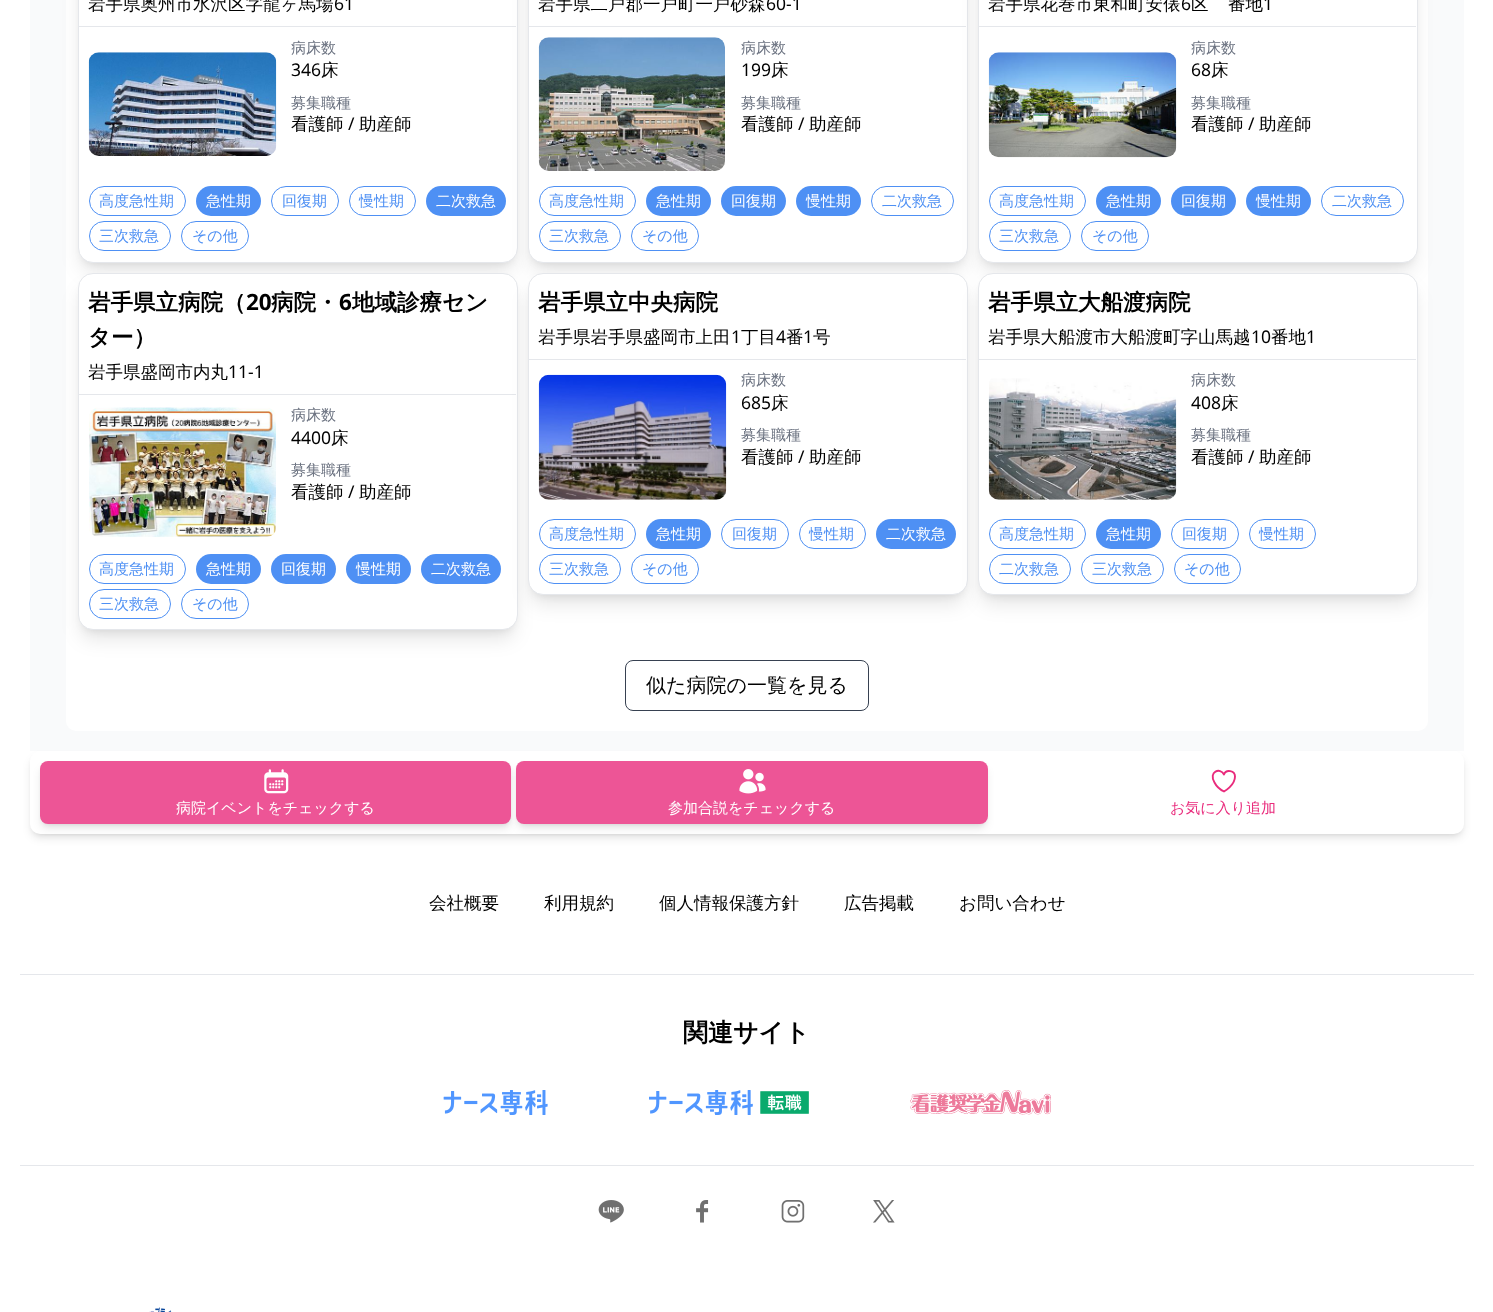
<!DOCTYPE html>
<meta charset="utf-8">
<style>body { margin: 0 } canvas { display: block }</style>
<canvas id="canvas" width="1493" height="1312"></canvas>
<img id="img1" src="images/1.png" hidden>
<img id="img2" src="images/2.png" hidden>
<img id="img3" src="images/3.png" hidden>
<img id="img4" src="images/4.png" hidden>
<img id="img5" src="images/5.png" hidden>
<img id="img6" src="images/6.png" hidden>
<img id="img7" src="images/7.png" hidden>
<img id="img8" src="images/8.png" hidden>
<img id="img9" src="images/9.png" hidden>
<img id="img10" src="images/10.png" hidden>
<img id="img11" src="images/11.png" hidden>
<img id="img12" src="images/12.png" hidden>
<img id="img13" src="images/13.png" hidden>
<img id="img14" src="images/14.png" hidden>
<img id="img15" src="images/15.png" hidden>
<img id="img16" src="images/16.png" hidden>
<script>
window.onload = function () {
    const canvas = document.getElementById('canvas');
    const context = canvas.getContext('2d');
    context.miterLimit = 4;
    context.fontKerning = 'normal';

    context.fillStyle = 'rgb(255, 255, 255)';
    context.fillRect(0, 0, 1493, 1312);
    context.fillStyle = 'rgb(249, 250, 251)';
    context.fillRect(30, 0, 1434, 751);
    context.fillStyle = 'rgb(255, 255, 255)';
    context.beginPath();
    context.roundRect(66, -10, 1362, 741, 10);
    context.fill();
    context.fillStyle = 'rgba(0, 0, 0, 0.1)';
    context.filter = 'blur(4px)';
    context.beginPath();
    context.roundRect(83, -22, 430, 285, 10);
    context.fill();
    context.filter = 'none';
    context.filter = 'blur(9.5px)';
    context.beginPath();
    context.roundRect(81, -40, 433, 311, 11);
    context.fill();
    context.filter = 'none';
    context.fillStyle = 'rgb(255, 255, 255)';
    context.beginPath();
    context.roundRect(78.5, -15.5, 439, 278, 14.5);
    context.fill();
    context.strokeStyle = 'rgb(229, 231, 235)';
    context.stroke();
    context.fillStyle = 'rgb(229, 231, 235)';
    context.fillRect(79, 26, 437, 1);
    context.drawImage(document.getElementById('img1'), 88, 52, 189, 104);
    context.beginPath();
    context.roundRect(89.5, 186.5, 96, 29, 14.5);
    context.strokeStyle = 'rgb(78, 144, 244)';
    context.stroke();
    context.fillStyle = 'rgb(78, 144, 244)';
    context.beginPath();
    context.roundRect(196, 186, 65, 30, 15);
    context.fill();
    context.beginPath();
    context.roundRect(271.5, 186.5, 67, 29, 14.5);
    context.stroke();
    context.beginPath();
    context.roundRect(349.5, 186.5, 66, 29, 14.5);
    context.stroke();
    context.beginPath();
    context.roundRect(426, 186, 80, 30, 15);
    context.fill();
    context.beginPath();
    context.roundRect(89.5, 221.5, 81, 29, 14.5);
    context.stroke();
    context.beginPath();
    context.roundRect(181.5, 221.5, 67, 29, 14.5);
    context.stroke();
    context.fillStyle = 'rgba(0, 0, 0, 0.1)';
    context.filter = 'blur(4px)';
    context.beginPath();
    context.roundRect(533, -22, 430, 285, 10);
    context.fill();
    context.filter = 'none';
    context.filter = 'blur(9.5px)';
    context.beginPath();
    context.roundRect(531, -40, 433, 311, 11);
    context.fill();
    context.filter = 'none';
    context.fillStyle = 'rgb(255, 255, 255)';
    context.beginPath();
    context.roundRect(528.5, -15.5, 439, 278, 14.5);
    context.fill();
    context.strokeStyle = 'rgb(229, 231, 235)';
    context.stroke();
    context.fillStyle = 'rgb(229, 231, 235)';
    context.fillRect(529, 26, 437, 1);
    context.drawImage(document.getElementById('img2'), 538, 37, 187, 134);
    context.beginPath();
    context.roundRect(539.5, 186.5, 96, 29, 14.5);
    context.strokeStyle = 'rgb(78, 144, 244)';
    context.stroke();
    context.fillStyle = 'rgb(78, 144, 244)';
    context.beginPath();
    context.roundRect(646, 186, 65, 30, 15);
    context.fill();
    context.beginPath();
    context.roundRect(721, 186, 65, 30, 15);
    context.fill();
    context.beginPath();
    context.roundRect(796, 186, 65, 30, 15);
    context.fill();
    context.beginPath();
    context.roundRect(871.5, 186.5, 82, 29, 14.5);
    context.stroke();
    context.beginPath();
    context.roundRect(539.5, 221.5, 81, 29, 14.5);
    context.stroke();
    context.beginPath();
    context.roundRect(631.5, 221.5, 67, 29, 14.5);
    context.stroke();
    context.fillStyle = 'rgba(0, 0, 0, 0.1)';
    context.filter = 'blur(4px)';
    context.beginPath();
    context.roundRect(983, -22, 430, 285, 10);
    context.fill();
    context.filter = 'none';
    context.filter = 'blur(9.5px)';
    context.beginPath();
    context.roundRect(981, -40, 433, 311, 11);
    context.fill();
    context.filter = 'none';
    context.fillStyle = 'rgb(255, 255, 255)';
    context.beginPath();
    context.roundRect(978.5, -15.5, 439, 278, 14.5);
    context.fill();
    context.strokeStyle = 'rgb(229, 231, 235)';
    context.stroke();
    context.fillStyle = 'rgb(229, 231, 235)';
    context.fillRect(979, 26, 437, 1);
    context.drawImage(document.getElementById('img3'), 988, 52, 189, 106);
    context.beginPath();
    context.roundRect(989.5, 186.5, 96, 29, 14.5);
    context.strokeStyle = 'rgb(78, 144, 244)';
    context.stroke();
    context.fillStyle = 'rgb(78, 144, 244)';
    context.beginPath();
    context.roundRect(1096, 186, 65, 30, 15);
    context.fill();
    context.beginPath();
    context.roundRect(1171, 186, 65, 30, 15);
    context.fill();
    context.beginPath();
    context.roundRect(1246, 186, 65, 30, 15);
    context.fill();
    context.beginPath();
    context.roundRect(1321.5, 186.5, 82, 29, 14.5);
    context.stroke();
    context.beginPath();
    context.roundRect(989.5, 221.5, 81, 29, 14.5);
    context.stroke();
    context.beginPath();
    context.roundRect(1081.5, 221.5, 67, 29, 14.5);
    context.stroke();
    context.fillStyle = 'rgba(0, 0, 0, 0.1)';
    context.filter = 'blur(4px)';
    context.beginPath();
    context.roundRect(83, 283, 430, 347, 10);
    context.fill();
    context.filter = 'none';
    context.filter = 'blur(9.5px)';
    context.beginPath();
    context.roundRect(81, 289, 433, 350, 11);
    context.fill();
    context.filter = 'none';
    context.fillStyle = 'rgb(255, 255, 255)';
    context.beginPath();
    context.roundRect(78.5, 273.5, 439, 356, 14.5);
    context.fill();
    context.strokeStyle = 'rgb(229, 231, 235)';
    context.stroke();
    context.fillStyle = 'rgb(229, 231, 235)';
    context.fillRect(79, 394, 437, 1);
    context.drawImage(document.getElementById('img4'), 89, 407, 187, 131);
    context.beginPath();
    context.roundRect(89.5, 554.5, 96, 29, 14.5);
    context.strokeStyle = 'rgb(78, 144, 244)';
    context.stroke();
    context.fillStyle = 'rgb(78, 144, 244)';
    context.beginPath();
    context.roundRect(196, 554, 65, 30, 15);
    context.fill();
    context.beginPath();
    context.roundRect(271, 554, 65, 30, 15);
    context.fill();
    context.beginPath();
    context.roundRect(346, 554, 65, 30, 15);
    context.fill();
    context.beginPath();
    context.roundRect(421, 554, 80, 30, 15);
    context.fill();
    context.beginPath();
    context.roundRect(89.5, 589.5, 81, 29, 14.5);
    context.stroke();
    context.beginPath();
    context.roundRect(181.5, 589.5, 67, 29, 14.5);
    context.stroke();
    context.fillStyle = 'rgba(0, 0, 0, 0.1)';
    context.filter = 'blur(4px)';
    context.beginPath();
    context.roundRect(533, 283, 430, 312, 10);
    context.fill();
    context.filter = 'none';
    context.filter = 'blur(9.5px)';
    context.beginPath();
    context.roundRect(531, 289, 433, 315, 11);
    context.fill();
    context.filter = 'none';
    context.fillStyle = 'rgb(255, 255, 255)';
    context.beginPath();
    context.roundRect(528.5, 273.5, 439, 321, 14.5);
    context.fill();
    context.strokeStyle = 'rgb(229, 231, 235)';
    context.stroke();
    context.fillStyle = 'rgb(229, 231, 235)';
    context.fillRect(529, 359, 437, 1);
    context.drawImage(document.getElementById('img5'), 538, 374, 189, 126);
    context.beginPath();
    context.roundRect(539.5, 519.5, 96, 29, 14.5);
    context.strokeStyle = 'rgb(78, 144, 244)';
    context.stroke();
    context.fillStyle = 'rgb(78, 144, 244)';
    context.beginPath();
    context.roundRect(646, 519, 65, 30, 15);
    context.fill();
    context.beginPath();
    context.roundRect(721.5, 519.5, 67, 29, 14.5);
    context.stroke();
    context.beginPath();
    context.roundRect(799.5, 519.5, 66, 29, 14.5);
    context.stroke();
    context.beginPath();
    context.roundRect(876, 519, 80, 30, 15);
    context.fill();
    context.beginPath();
    context.roundRect(539.5, 554.5, 81, 29, 14.5);
    context.stroke();
    context.beginPath();
    context.roundRect(631.5, 554.5, 67, 29, 14.5);
    context.stroke();
    context.fillStyle = 'rgba(0, 0, 0, 0.1)';
    context.filter = 'blur(4px)';
    context.beginPath();
    context.roundRect(983, 283, 430, 312, 10);
    context.fill();
    context.filter = 'none';
    context.filter = 'blur(9.5px)';
    context.beginPath();
    context.roundRect(981, 289, 433, 315, 11);
    context.fill();
    context.filter = 'none';
    context.fillStyle = 'rgb(255, 255, 255)';
    context.beginPath();
    context.roundRect(978.5, 273.5, 439, 321, 14.5);
    context.fill();
    context.strokeStyle = 'rgb(229, 231, 235)';
    context.stroke();
    context.fillStyle = 'rgb(229, 231, 235)';
    context.fillRect(979, 359, 437, 1);
    context.drawImage(document.getElementById('img6'), 988, 378, 189, 122);
    context.beginPath();
    context.roundRect(989.5, 519.5, 96, 29, 14.5);
    context.strokeStyle = 'rgb(78, 144, 244)';
    context.stroke();
    context.fillStyle = 'rgb(78, 144, 244)';
    context.beginPath();
    context.roundRect(1096, 519, 65, 30, 15);
    context.fill();
    context.beginPath();
    context.roundRect(1171.5, 519.5, 67, 29, 14.5);
    context.stroke();
    context.beginPath();
    context.roundRect(1249.5, 519.5, 66, 29, 14.5);
    context.stroke();
    context.beginPath();
    context.roundRect(989.5, 554.5, 81, 29, 14.5);
    context.stroke();
    context.beginPath();
    context.roundRect(1081.5, 554.5, 82, 29, 14.5);
    context.stroke();
    context.beginPath();
    context.roundRect(1174.5, 554.5, 66, 29, 14.5);
    context.stroke();
    context.beginPath();
    context.roundRect(625.5, 660.5, 243, 50, 7.5);
    context.strokeStyle = 'rgb(55, 65, 81)';
    context.stroke();
    context.fillStyle = 'rgba(0, 0, 0, 0.1)';
    context.filter = 'blur(2.5px)';
    context.beginPath();
    context.roundRect(33, 756, 1428, 78, 8);
    context.fill();
    context.filter = 'none';
    context.filter = 'blur(4px)';
    context.beginPath();
    context.roundRect(31, 758, 1432, 80, 9);
    context.fill();
    context.filter = 'none';
    context.fillStyle = 'rgb(255, 255, 255)';
    context.beginPath();
    context.roundRect(30, 751, 1434, 83, 10);
    context.fill();
    context.fillStyle = 'rgba(0, 0, 0, 0.1)';
    context.filter = 'blur(2.5px)';
    context.beginPath();
    context.roundRect(43, 766, 466, 58, 5);
    context.fill();
    context.filter = 'none';
    context.filter = 'blur(4px)';
    context.beginPath();
    context.roundRect(41, 768, 469, 60, 6);
    context.fill();
    context.filter = 'none';
    context.fillStyle = 'rgb(237, 85, 150)';
    context.beginPath();
    context.roundRect(40, 761, 471, 63, 8);
    context.fill();
    context.drawImage(document.getElementById('img7'), 264, 769, 25, 25);
    context.fillStyle = 'rgba(0, 0, 0, 0.1)';
    context.filter = 'blur(2.5px)';
    context.beginPath();
    context.roundRect(519, 766, 466, 58, 5);
    context.fill();
    context.filter = 'none';
    context.filter = 'blur(4px)';
    context.beginPath();
    context.roundRect(518, 768, 468, 60, 6);
    context.fill();
    context.filter = 'none';
    context.fillStyle = 'rgb(237, 85, 150)';
    context.beginPath();
    context.roundRect(516, 761, 472, 63, 8);
    context.fill();
    context.drawImage(document.getElementById('img8'), 739, 769, 27, 25);
    context.beginPath();
    context.moveTo(1235, 776.5);
    context.bezierCurveTo(1235, 770.5, 1226, 769, 1224, 774.5);
    context.bezierCurveTo(1220.5, 767, 1208, 771.5, 1214.5, 782.5);
    context.bezierCurveTo(1216.5, 786.5, 1220, 789.5, 1224, 791.5);
    context.bezierCurveTo(1224, 791.5, 1235, 785.5, 1235, 776.5);
    context.closePath();
    context.strokeStyle = 'rgb(233, 43, 124)';
    context.lineWidth = 1.9;
    context.lineCap = 'round';
    context.lineJoin = 'round';
    context.stroke();
    context.fillStyle = 'rgb(229, 231, 235)';
    context.fillRect(20, 974, 1454, 1);
    context.drawImage(document.getElementById('img9'), 443, 1090, 105, 25);
    context.drawImage(document.getElementById('img10'), 649, 1090, 160, 25);
    context.drawImage(document.getElementById('img11'), 910, 1090, 141, 25);
    context.fillRect(20, 1165, 1454, 1);
    context.drawImage(document.getElementById('img12'), 598, 1200, 26, 23);
    context.drawImage(document.getElementById('img13'), 696, 1200, 13, 23);
    context.drawImage(document.getElementById('img14'), 781, 1200, 24, 23);
    context.drawImage(document.getElementById('img15'), 873, 1200, 22, 23);
    context.drawImage(document.getElementById('img16'), 149, 1307, 23, 5);
    context.font = '500 17.5px WenQuanYi Zen Hei';
    context.fillStyle = 'rgb(0, 0, 0)';
    context.fillText('岩手県奥州市水沢区字龍ヶ馬場', 88, 10);
    context.font = '17.5px Noto Sans';
    context.fillText('61', 334, 10);
    context.font = '500 15px WenQuanYi Zen Hei';
    context.fillStyle = 'rgb(107, 114, 128)';
    context.fillText('病床数', 291, 53);
    context.font = '17.5px Noto Sans';
    context.fillStyle = 'rgb(0, 0, 0)';
    context.fillText('346', 291, 76);
    context.font = '500 17.5px WenQuanYi Zen Hei';
    context.fillText('床', 321, 76);
    context.font = '500 15px WenQuanYi Zen Hei';
    context.fillStyle = 'rgb(107, 114, 128)';
    context.fillText('募集職種', 291, 108);
    context.font = '500 17.5px WenQuanYi Zen Hei';
    context.fillStyle = 'rgb(0, 0, 0)';
    context.fillText('看護師', 291, 130);
    context.font = '17.5px Noto Sans';
    context.fillText('/', 348, 130);
    context.font = '500 17.5px WenQuanYi Zen Hei';
    context.fillText('助産師', 359, 130);
    context.font = '500 15px WenQuanYi Zen Hei';
    context.fillStyle = 'rgb(78, 144, 244)';
    context.fillText('高度急性期', 99, 206);
    context.fillStyle = 'rgb(255, 255, 255)';
    context.fillText('急性期', 206, 206);
    context.fillStyle = 'rgb(78, 144, 244)';
    context.fillText('回復期', 282, 206);
    context.fillText('慢性期', 359, 206);
    context.fillStyle = 'rgb(255, 255, 255)';
    context.fillText('二次救急', 436, 206);
    context.fillStyle = 'rgb(78, 144, 244)';
    context.fillText('三次救急', 99, 241);
    context.fillText('その他', 192, 241);
    context.font = '500 17.5px WenQuanYi Zen Hei';
    context.fillStyle = 'rgb(0, 0, 0)';
    context.fillText('岩手県二戸郡一戸町一戸砂森', 538, 10);
    context.font = '17.5px Noto Sans';
    context.fillText('60-1', 766, 10);
    context.font = '500 15px WenQuanYi Zen Hei';
    context.fillStyle = 'rgb(107, 114, 128)';
    context.fillText('病床数', 741, 53);
    context.font = '17.5px Noto Sans';
    context.fillStyle = 'rgb(0, 0, 0)';
    context.fillText('199', 741, 76);
    context.font = '500 17.5px WenQuanYi Zen Hei';
    context.fillText('床', 771, 76);
    context.font = '500 15px WenQuanYi Zen Hei';
    context.fillStyle = 'rgb(107, 114, 128)';
    context.fillText('募集職種', 741, 108);
    context.font = '500 17.5px WenQuanYi Zen Hei';
    context.fillStyle = 'rgb(0, 0, 0)';
    context.fillText('看護師', 741, 130);
    context.font = '17.5px Noto Sans';
    context.fillText('/', 798, 130);
    context.font = '500 17.5px WenQuanYi Zen Hei';
    context.fillText('助産師', 809, 130);
    context.font = '500 15px WenQuanYi Zen Hei';
    context.fillStyle = 'rgb(78, 144, 244)';
    context.fillText('高度急性期', 549, 206);
    context.fillStyle = 'rgb(255, 255, 255)';
    context.fillText('急性期', 656, 206);
    context.fillText('回復期', 731, 206);
    context.fillText('慢性期', 806, 206);
    context.fillStyle = 'rgb(78, 144, 244)';
    context.fillText('二次救急', 882, 206);
    context.fillText('三次救急', 549, 241);
    context.fillText('その他', 642, 241);
    context.font = '500 17.5px WenQuanYi Zen Hei';
    context.fillStyle = 'rgb(0, 0, 0)';
    context.fillText('岩手県花巻市東和町安俵', 988, 10);
    context.font = '17.5px Noto Sans';
    context.fillText('6', 1181, 10);
    context.font = '500 17.5px WenQuanYi Zen Hei';
    context.fillText('区', 1191, 10);
    context.fillText('番地', 1228, 10);
    context.font = '17.5px Noto Sans';
    context.fillText('1', 1263, 10);
    context.font = '500 15px WenQuanYi Zen Hei';
    context.fillStyle = 'rgb(107, 114, 128)';
    context.fillText('病床数', 1191, 53);
    context.font = '17.5px Noto Sans';
    context.fillStyle = 'rgb(0, 0, 0)';
    context.fillText('68', 1191, 76);
    context.font = '500 17.5px WenQuanYi Zen Hei';
    context.fillText('床', 1211, 76);
    context.font = '500 15px WenQuanYi Zen Hei';
    context.fillStyle = 'rgb(107, 114, 128)';
    context.fillText('募集職種', 1191, 108);
    context.font = '500 17.5px WenQuanYi Zen Hei';
    context.fillStyle = 'rgb(0, 0, 0)';
    context.fillText('看護師', 1191, 130);
    context.font = '17.5px Noto Sans';
    context.fillText('/', 1248, 130);
    context.font = '500 17.5px WenQuanYi Zen Hei';
    context.fillText('助産師', 1259, 130);
    context.font = '500 15px WenQuanYi Zen Hei';
    context.fillStyle = 'rgb(78, 144, 244)';
    context.fillText('高度急性期', 999, 206);
    context.fillStyle = 'rgb(255, 255, 255)';
    context.fillText('急性期', 1106, 206);
    context.fillText('回復期', 1181, 206);
    context.fillText('慢性期', 1256, 206);
    context.fillStyle = 'rgb(78, 144, 244)';
    context.fillText('二次救急', 1332, 206);
    context.fillText('三次救急', 999, 241);
    context.fillText('その他', 1092, 241);
    context.font = 'bold 22.5px WenQuanYi Zen Hei';
    context.fillStyle = 'rgb(0, 0, 0)';
    context.fillText('岩手県立病院（', 88, 310);
    context.font = 'bold 22.5px Noto Sans';
    context.fillText('20', 246, 310);
    context.font = 'bold 22.5px WenQuanYi Zen Hei';
    context.fillText('病院・', 271, 310);
    context.font = 'bold 22.5px Noto Sans';
    context.fillText('6', 339, 310);
    context.font = 'bold 22.5px WenQuanYi Zen Hei';
    context.fillText('地域診療セン', 352, 310);
    context.fillText('ター）', 88, 345);
    context.font = '500 17.5px WenQuanYi Zen Hei';
    context.fillText('岩手県盛岡市内丸', 88, 378);
    context.font = '17.5px Noto Sans';
    context.fillText('11-1', 228, 378);
    context.font = '500 15px WenQuanYi Zen Hei';
    context.fillStyle = 'rgb(107, 114, 128)';
    context.fillText('病床数', 291, 420);
    context.font = '17.5px Noto Sans';
    context.fillStyle = 'rgb(0, 0, 0)';
    context.fillText('4400', 291, 444);
    context.font = '500 17.5px WenQuanYi Zen Hei';
    context.fillText('床', 331, 444);
    context.font = '500 15px WenQuanYi Zen Hei';
    context.fillStyle = 'rgb(107, 114, 128)';
    context.fillText('募集職種', 291, 475);
    context.font = '500 17.5px WenQuanYi Zen Hei';
    context.fillStyle = 'rgb(0, 0, 0)';
    context.fillText('看護師', 291, 498);
    context.font = '17.5px Noto Sans';
    context.fillText('/', 348, 498);
    context.font = '500 17.5px WenQuanYi Zen Hei';
    context.fillText('助産師', 359, 498);
    context.font = '500 15px WenQuanYi Zen Hei';
    context.fillStyle = 'rgb(78, 144, 244)';
    context.fillText('高度急性期', 99, 574);
    context.fillStyle = 'rgb(255, 255, 255)';
    context.fillText('急性期', 206, 574);
    context.fillText('回復期', 281, 574);
    context.fillText('慢性期', 356, 574);
    context.fillText('二次救急', 431, 574);
    context.fillStyle = 'rgb(78, 144, 244)';
    context.fillText('三次救急', 99, 609);
    context.fillText('その他', 192, 609);
    context.font = 'bold 22.5px WenQuanYi Zen Hei';
    context.fillStyle = 'rgb(0, 0, 0)';
    context.fillText('岩手県立中央病院', 538, 310);
    context.font = '500 17.5px WenQuanYi Zen Hei';
    context.fillText('岩手県岩手県盛岡市上田', 538, 343);
    context.font = '17.5px Noto Sans';
    context.fillText('1', 731, 343);
    context.font = '500 17.5px WenQuanYi Zen Hei';
    context.fillText('丁目', 741, 343);
    context.font = '17.5px Noto Sans';
    context.fillText('4', 776, 343);
    context.font = '500 17.5px WenQuanYi Zen Hei';
    context.fillText('番', 786, 343);
    context.font = '17.5px Noto Sans';
    context.fillText('1', 803, 343);
    context.font = '500 17.5px WenQuanYi Zen Hei';
    context.fillText('号', 813, 343);
    context.font = '500 15px WenQuanYi Zen Hei';
    context.fillStyle = 'rgb(107, 114, 128)';
    context.fillText('病床数', 741, 385);
    context.font = '17.5px Noto Sans';
    context.fillStyle = 'rgb(0, 0, 0)';
    context.fillText('685', 741, 409);
    context.font = '500 17.5px WenQuanYi Zen Hei';
    context.fillText('床', 771, 409);
    context.font = '500 15px WenQuanYi Zen Hei';
    context.fillStyle = 'rgb(107, 114, 128)';
    context.fillText('募集職種', 741, 440);
    context.font = '500 17.5px WenQuanYi Zen Hei';
    context.fillStyle = 'rgb(0, 0, 0)';
    context.fillText('看護師', 741, 463);
    context.font = '17.5px Noto Sans';
    context.fillText('/', 798, 463);
    context.font = '500 17.5px WenQuanYi Zen Hei';
    context.fillText('助産師', 809, 463);
    context.font = '500 15px WenQuanYi Zen Hei';
    context.fillStyle = 'rgb(78, 144, 244)';
    context.fillText('高度急性期', 549, 539);
    context.fillStyle = 'rgb(255, 255, 255)';
    context.fillText('急性期', 656, 539);
    context.fillStyle = 'rgb(78, 144, 244)';
    context.fillText('回復期', 732, 539);
    context.fillText('慢性期', 809, 539);
    context.fillStyle = 'rgb(255, 255, 255)';
    context.fillText('二次救急', 886, 539);
    context.fillStyle = 'rgb(78, 144, 244)';
    context.fillText('三次救急', 549, 574);
    context.fillText('その他', 642, 574);
    context.font = 'bold 22.5px WenQuanYi Zen Hei';
    context.fillStyle = 'rgb(0, 0, 0)';
    context.fillText('岩手県立大船渡病院', 988, 310);
    context.font = '500 17.5px WenQuanYi Zen Hei';
    context.fillText('岩手県大船渡市大船渡町字山馬越', 988, 343);
    context.font = '17.5px Noto Sans';
    context.fillText('10', 1251, 343);
    context.font = '500 17.5px WenQuanYi Zen Hei';
    context.fillText('番地', 1271, 343);
    context.font = '17.5px Noto Sans';
    context.fillText('1', 1306, 343);
    context.font = '500 15px WenQuanYi Zen Hei';
    context.fillStyle = 'rgb(107, 114, 128)';
    context.fillText('病床数', 1191, 385);
    context.font = '17.5px Noto Sans';
    context.fillStyle = 'rgb(0, 0, 0)';
    context.fillText('408', 1191, 409);
    context.font = '500 17.5px WenQuanYi Zen Hei';
    context.fillText('床', 1221, 409);
    context.font = '500 15px WenQuanYi Zen Hei';
    context.fillStyle = 'rgb(107, 114, 128)';
    context.fillText('募集職種', 1191, 440);
    context.font = '500 17.5px WenQuanYi Zen Hei';
    context.fillStyle = 'rgb(0, 0, 0)';
    context.fillText('看護師', 1191, 463);
    context.font = '17.5px Noto Sans';
    context.fillText('/', 1248, 463);
    context.font = '500 17.5px WenQuanYi Zen Hei';
    context.fillText('助産師', 1259, 463);
    context.font = '500 15px WenQuanYi Zen Hei';
    context.fillStyle = 'rgb(78, 144, 244)';
    context.fillText('高度急性期', 999, 539);
    context.fillStyle = 'rgb(255, 255, 255)';
    context.fillText('急性期', 1106, 539);
    context.fillStyle = 'rgb(78, 144, 244)';
    context.fillText('回復期', 1182, 539);
    context.fillText('慢性期', 1259, 539);
    context.fillText('二次救急', 999, 574);
    context.fillText('三次救急', 1092, 574);
    context.fillText('その他', 1184, 574);
    context.font = '500 20px WenQuanYi Zen Hei';
    context.fillStyle = 'rgb(0, 0, 0)';
    context.fillText('似た病院の一覧を見る', 646, 692);
    context.font = '500 15px WenQuanYi Zen Hei';
    context.fillStyle = 'rgb(255, 255, 255)';
    context.fillText('病院イベントをチェックする', 176, 813);
    context.fillText('参加合説をチェックする', 668, 813);
    context.fillStyle = 'rgb(233, 43, 124)';
    context.fillText('お気に入り追加', 1170, 813);
    context.font = '500 17.5px WenQuanYi Zen Hei';
    context.fillStyle = 'rgb(0, 0, 0)';
    context.fillText('会社概要', 429, 909);
    context.fillText('利用規約', 544, 909);
    context.fillText('個人情報保護方針', 659, 909);
    context.fillText('広告掲載', 844, 909);
    context.fillText('お問い合わせ', 959, 909);
    context.font = 'bold 25px WenQuanYi Zen Hei';
    context.fillText('関連サイト', 683, 1041);
};
</script>
